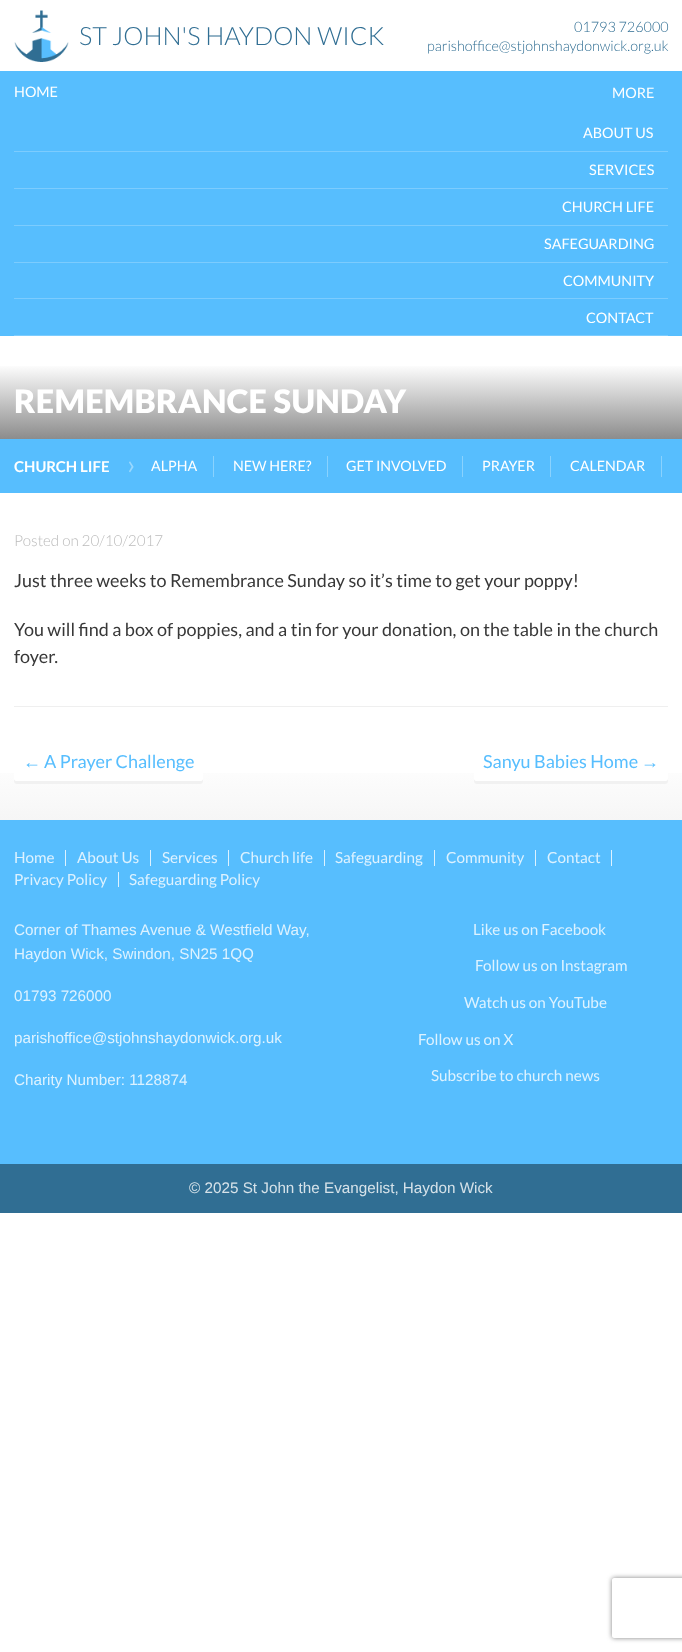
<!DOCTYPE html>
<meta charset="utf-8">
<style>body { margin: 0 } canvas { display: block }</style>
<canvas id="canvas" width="682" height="1652"></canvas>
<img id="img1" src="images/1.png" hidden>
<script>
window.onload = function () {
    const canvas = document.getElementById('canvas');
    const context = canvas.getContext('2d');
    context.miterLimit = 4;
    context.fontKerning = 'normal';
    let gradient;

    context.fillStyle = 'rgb(255, 255, 255)';
    context.fillRect(0, 0, 682, 1652);
    context.drawImage(document.getElementById('img1'), 14, 10, 55, 52);
    context.fillStyle = 'rgb(87, 190, 254)';
    context.fillRect(0, 71, 682, 265);
    context.fillStyle = 'rgb(124, 204, 254)';
    context.fillRect(14, 151, 654, 1);
    context.fillRect(14, 188, 654, 1);
    context.fillRect(14, 225, 654, 1);
    context.fillRect(14, 262, 654, 1);
    context.fillRect(14, 298, 654, 1);
    context.fillRect(14, 335, 654, 1);
    gradient = context.createLinearGradient(341, 364, 341, 439);
    gradient.addColorStop(0, 'rgb(255, 255, 255)');
    gradient.addColorStop(1, 'rgb(140, 140, 140)');
    context.fillStyle = gradient;
    context.fillRect(0, 366, 682, 73);
    context.fillStyle = 'rgb(87, 190, 254)';
    context.fillRect(0, 439, 682, 54);
    context.fillStyle = 'rgb(137, 210, 254)';
    context.fillRect(213, 456, 1, 21);
    context.fillRect(327, 456, 1, 21);
    context.fillRect(462, 456, 1, 21);
    context.fillRect(550, 456, 1, 21);
    context.fillRect(661, 456, 1, 21);
    gradient = context.createLinearGradient(341, 493, 341, 820);
    gradient.addColorStop(0.8, 'rgb(255, 255, 255)');
    gradient.addColorStop(1, 'rgb(246, 246, 246)');
    context.fillStyle = gradient;
    context.fillRect(0, 773, 682, 47);
    context.fillStyle = 'rgb(239, 239, 239)';
    context.fillRect(14, 706, 654, 1);
    context.fillStyle = 'rgb(241, 241, 241)';
    context.beginPath();
    context.moveTo(14, 778);
    context.lineTo(14, 781);
    context.bezierCurveTo(14, 783, 15, 784, 17, 784);
    context.lineTo(200, 784);
    context.bezierCurveTo(202, 784, 203, 783, 203, 781);
    context.lineTo(203, 778);
    context.bezierCurveTo(203, 780, 202, 781, 200, 781);
    context.lineTo(17, 781);
    context.bezierCurveTo(15, 781, 14, 780, 14, 778);
    context.closePath();
    context.fill();
    context.fillStyle = 'rgb(255, 255, 255)';
    context.beginPath();
    context.roundRect(14, 743, 189, 38, 3);
    context.fill();
    context.fillStyle = 'rgb(241, 241, 241)';
    context.beginPath();
    context.moveTo(474, 778);
    context.lineTo(474, 781);
    context.bezierCurveTo(474, 783, 475, 784, 477, 784);
    context.lineTo(665, 784);
    context.bezierCurveTo(667, 784, 668, 783, 668, 781);
    context.lineTo(668, 778);
    context.bezierCurveTo(668, 780, 667, 781, 665, 781);
    context.lineTo(477, 781);
    context.bezierCurveTo(475, 781, 474, 780, 474, 778);
    context.closePath();
    context.fill();
    context.fillStyle = 'rgb(255, 255, 255)';
    context.beginPath();
    context.roundRect(474, 743, 194, 38, 3);
    context.fill();
    context.fillStyle = 'rgb(87, 190, 254)';
    context.fillRect(0, 820, 682, 344);
    context.fillStyle = 'rgb(221, 242, 255)';
    context.fillRect(65, 850, 1, 16);
    context.fillRect(150, 850, 1, 16);
    context.fillRect(228, 850, 1, 16);
    context.fillRect(324, 850, 1, 16);
    context.fillRect(434, 850, 1, 16);
    context.fillRect(535, 850, 1, 16);
    context.fillRect(611, 850, 1, 16);
    context.fillRect(118, 872, 1, 15);
    context.fillStyle = 'rgb(48, 110, 147)';
    context.fillRect(0, 1164, 682, 49);
    context.save();
    context.beginPath();
    context.moveTo(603, 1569);
    context.lineTo(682, 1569);
    context.lineTo(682, 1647);
    context.lineTo(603, 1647);
    context.closePath();
    context.moveTo(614, 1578);
    context.lineTo(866, 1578);
    context.bezierCurveTo(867, 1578, 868, 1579, 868, 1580);
    context.lineTo(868, 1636);
    context.bezierCurveTo(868, 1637, 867, 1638, 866, 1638);
    context.lineTo(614, 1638);
    context.bezierCurveTo(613, 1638, 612, 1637, 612, 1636);
    context.lineTo(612, 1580);
    context.bezierCurveTo(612, 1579, 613, 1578, 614, 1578);
    context.closePath();
    context.clip('evenodd');
    context.fillStyle = 'rgb(128, 128, 128)';
    context.filter = 'blur(2.5px)';
    context.beginPath();
    context.roundRect(612, 1578, 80, 60, 2);
    context.fill();
    context.filter = 'none';
    context.restore();
    context.font = '300 25.25px Lato';
    context.fillText('ST JOHN\'S HAYDON WICK', 79, 45);
    context.font = '300 14.4px Lato';
    context.fillText('01793 726000', 574, 32);
    context.fillText('parishoffice@stjohnshaydonwick.org.uk', 427, 51);
    context.font = '14.4px Lato';
    context.fillStyle = 'rgb(255, 255, 255)';
    context.fillText('HOME', 14, 97);
    context.fillText('MORE', 612, 98);
    context.fillText('ABOUT US', 583, 138);
    context.fillText('SERVICES', 589, 175);
    context.fillText('CHURCH LIFE', 562, 212);
    context.fillText('SAFEGUARDING', 544, 249);
    context.fillText('COMMUNITY', 563, 286);
    context.fillText('CONTACT', 586, 323);
    context.letterSpacing = '0.3px';
    context.font = '900 32.4px Lato';
    context.fillText('REMEMBRANCE SUNDAY', 14, 413);
    context.letterSpacing = '0px';
    context.font = 'bold 15px Lato';
    context.fillText('CHURCH LIFE', 14, 472);
    context.font = '27px Lato';
    context.fillStyle = 'rgb(154, 216, 254)';
    context.fillText('›', 127, 474);
    context.font = '14.25px Lato';
    context.fillStyle = 'rgb(255, 255, 255)';
    context.fillText('ALPHA', 151, 471);
    context.fillText('NEW HERE?', 233, 471);
    context.fillText('GET INVOLVED', 346, 471);
    context.fillText('PRAYER', 482, 471);
    context.fillText('CALENDAR', 570, 471);
    context.font = '300 15.25px Lato';
    context.fillStyle = 'rgb(187, 187, 187)';
    context.fillText('Posted on 20/10/2017', 14, 546);
    context.font = '18px Lato';
    context.fillStyle = 'rgb(56, 56, 56)';
    context.fillText('Just three weeks to Remembrance Sunday so it’s time to get your poppy!', 14, 587);
    context.fillText('You will find a box of poppies, and a tin for your donation, on the table in the church', 14, 636);
    context.fillText('foyer.', 14, 663);
    context.font = '18px Liberation Sans';
    context.fillStyle = 'rgb(87, 190, 254)';
    context.fillText('←', 23, 768);
    context.font = '18px Lato';
    context.fillText('A Prayer Challenge', 44, 768);
    context.fillText('Sanyu Babies Home', 483, 768);
    context.font = '18px Liberation Sans';
    context.fillText('→', 641, 768);
    context.font = '15.25px Lato';
    context.fillStyle = 'rgb(221, 242, 255)';
    context.fillText('Home', 14, 863);
    context.fillText('About Us', 77, 863);
    context.fillText('Services', 162, 863);
    context.fillText('Church life', 240, 863);
    context.fillText('Safeguarding', 335, 863);
    context.fillText('Community', 446, 863);
    context.fillText('Contact', 547, 863);
    context.fillText('Privacy Policy', 14, 885);
    context.fillText('Safeguarding Policy', 129, 885);
    context.font = '15.25px Liberation Sans';
    context.fillText('Corner of Thames Avenue & Westfield Way,', 14, 935);
    context.fillText('Haydon Wick, Swindon, SN25 1QQ', 14, 959);
    context.fillText('01793 726000', 14, 1001);
    context.fillText('parishoffice@stjohnshaydonwick.org.uk', 14, 1043);
    context.fillText('Charity Number: 1128874', 14, 1085);
    context.font = '15.25px Lato';
    context.fillText('Like us on Facebook', 473, 935);
    context.fillText('Follow us on Instagram', 475, 971);
    context.fillText('Watch us on YouTube', 464, 1008);
    context.fillText('Follow us on X', 418, 1045);
    context.fillText('Subscribe to church news', 431, 1081);
    context.font = '15.25px Liberation Sans';
    context.fillStyle = 'rgb(214, 226, 233)';
    context.fillText('© 2025 St John the Evangelist, Haydon Wick', 189, 1193);
};
</script>
